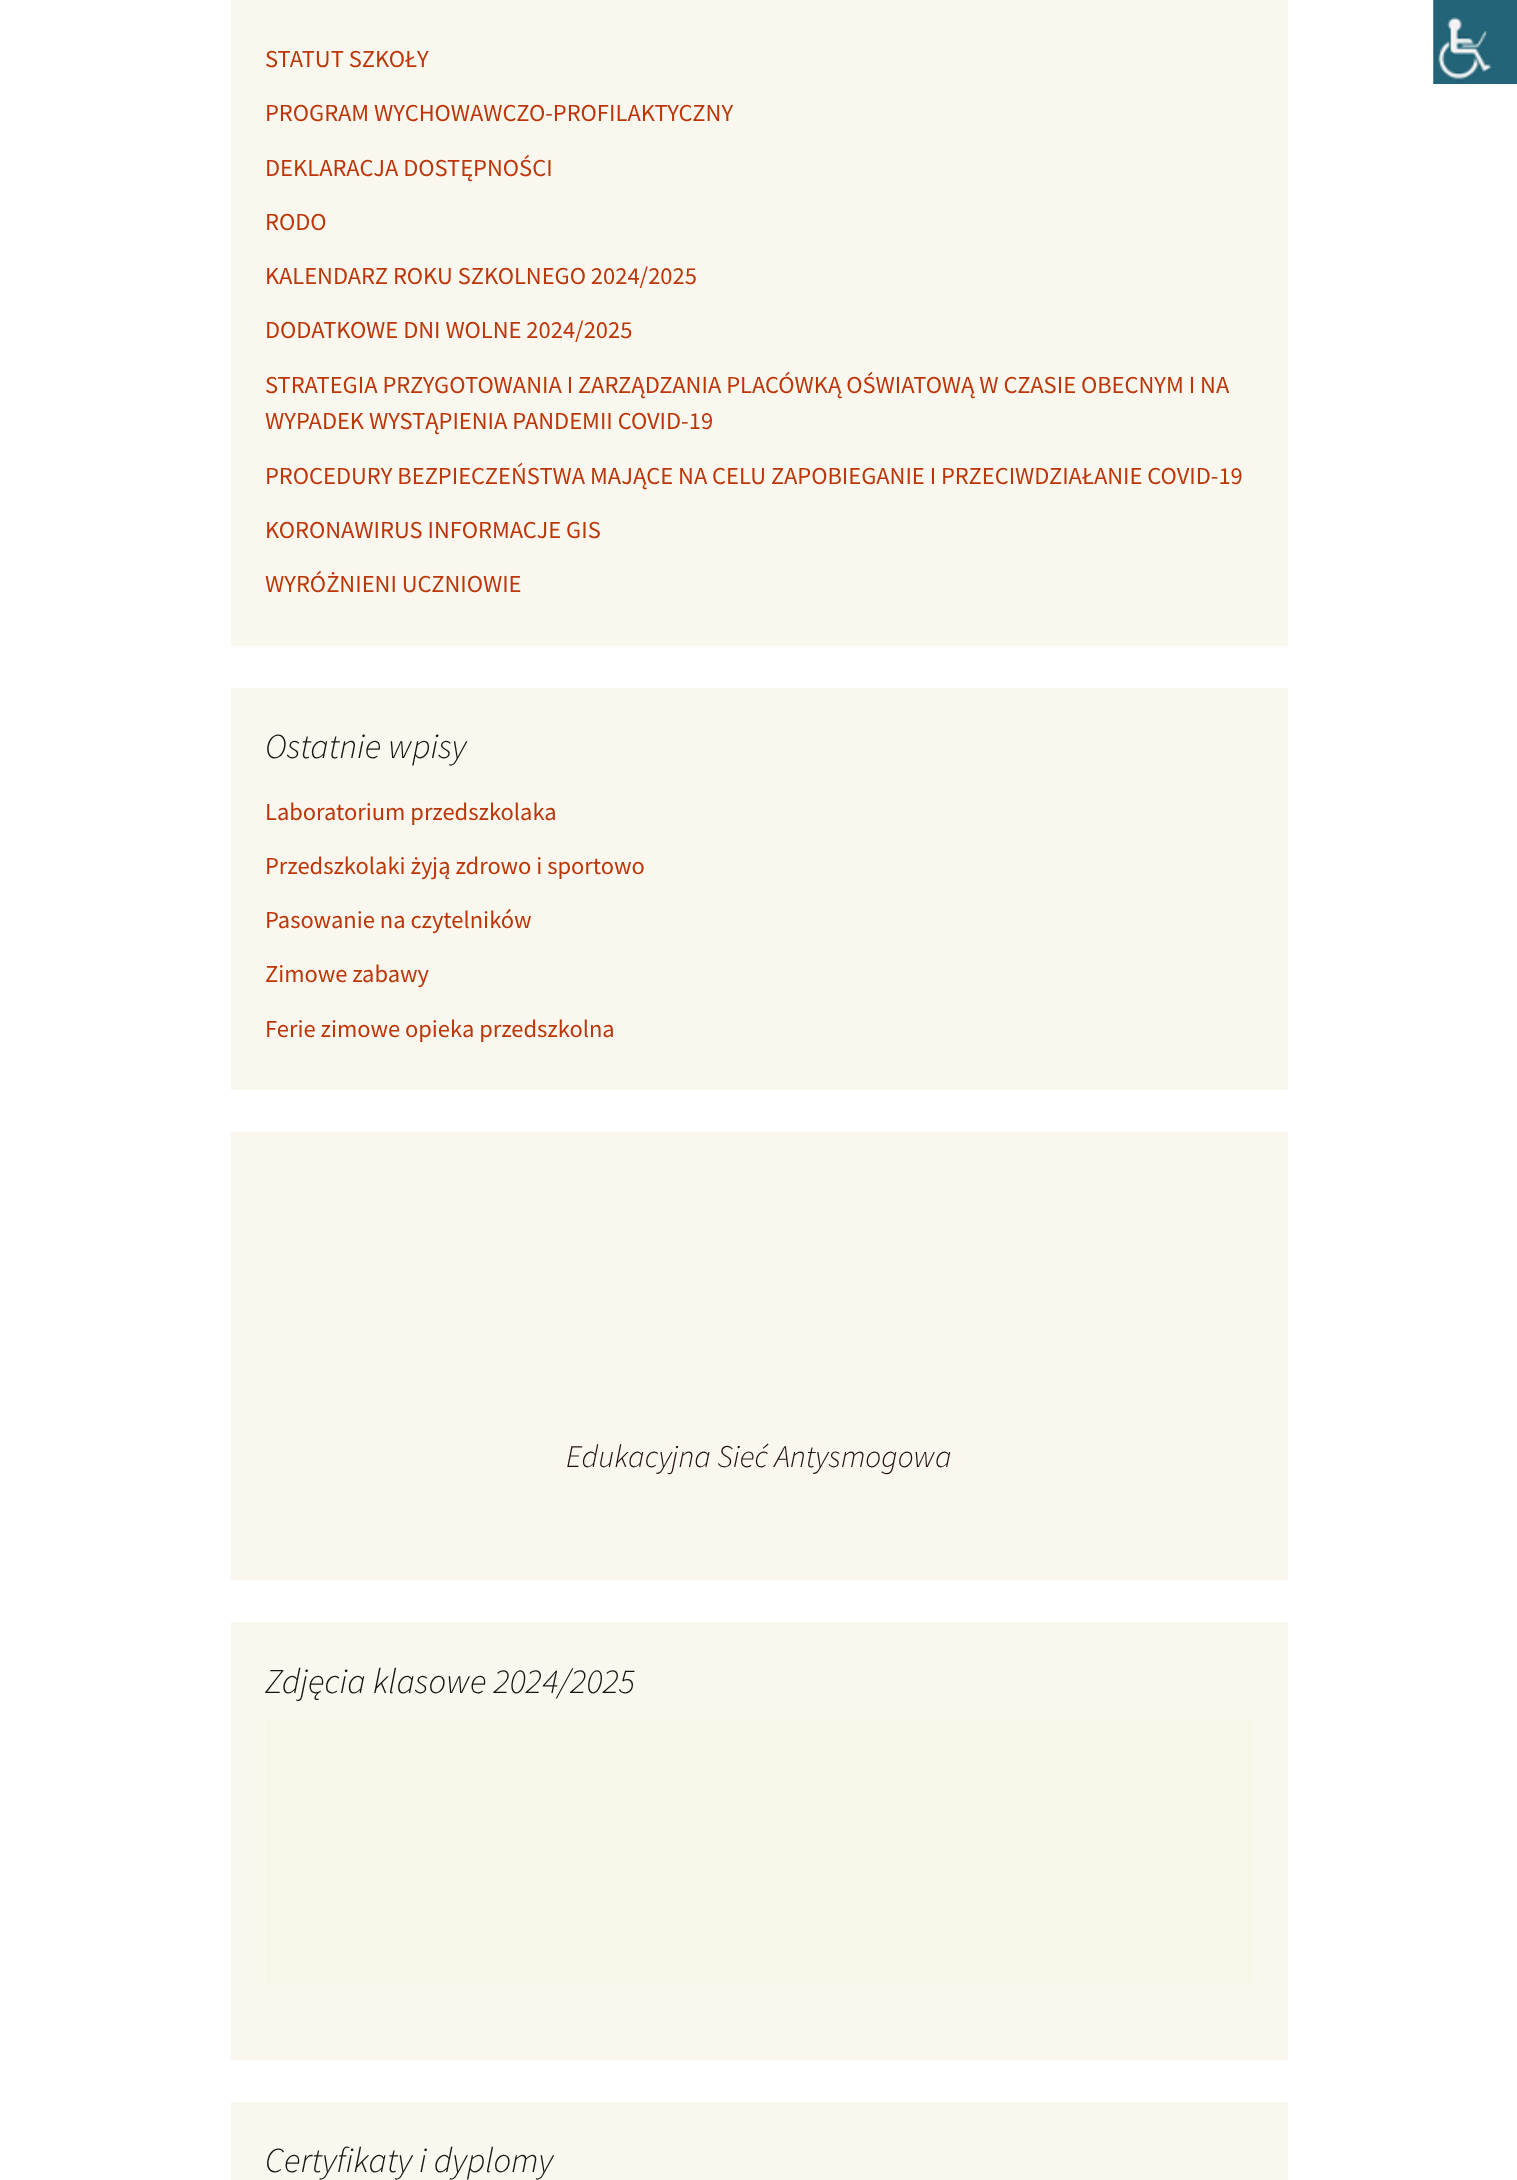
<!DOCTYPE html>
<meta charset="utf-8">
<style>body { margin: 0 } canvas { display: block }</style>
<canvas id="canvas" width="1517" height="2180"></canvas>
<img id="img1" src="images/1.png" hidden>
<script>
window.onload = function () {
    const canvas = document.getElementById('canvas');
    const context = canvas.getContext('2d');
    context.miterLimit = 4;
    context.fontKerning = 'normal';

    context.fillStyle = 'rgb(255, 255, 255)';
    context.fillRect(0, 0, 1517, 2180);
    context.fillStyle = 'rgb(250, 248, 238)';
    context.fillRect(231, 0, 1057, 646);
    context.fillRect(231, 688, 1057, 402);
    context.fillRect(231, 1132, 1057, 448);
    context.fillRect(231, 1622, 1057, 438);
    context.fillStyle = 'rgb(248, 246, 233)';
    context.fillRect(266, 1719, 987, 264);
    context.fillStyle = 'rgb(249, 248, 238)';
    context.fillRect(231, 2102, 1057, 78);
    context.drawImage(document.getElementById('img1'), 1433, 0, 84, 84);
    context.font = '24.5px Source Sans Pro';
    context.fillStyle = 'rgb(188, 54, 10)';
    context.fillText('STATUT SZKOŁY', 265, 67);
    context.fillText('PROGRAM WYCHOWAWCZO-PROFILAKTYCZNY', 265, 121);
    context.fillText('DEKLARACJA DOSTĘPNOŚCI', 265, 176);
    context.fillText('RODO', 265, 230);
    context.fillText('KALENDARZ ROKU SZKOLNEGO 2024/2025', 265, 284);
    context.fillText('DODATKOWE DNI WOLNE 2024/2025', 265, 338);
    context.fillText('STRATEGIA PRZYGOTOWANIA I ZARZĄDZANIA PLACÓWKĄ OŚWIATOWĄ W CZASIE OBECNYM I NA', 265, 393);
    context.fillText('WYPADEK WYSTĄPIENIA PANDEMII COVID-19', 265, 429);
    context.fillText('PROCEDURY BEZPIECZEŃSTWA MAJĄCE NA CELU ZAPOBIEGANIE I PRZECIWDZIAŁANIE COVID-19', 265, 484);
    context.fillText('KORONAWIRUS INFORMACJE GIS', 265, 538);
    context.fillText('WYRÓŻNIENI UCZNIOWIE', 265, 592);
    context.font = 'italic 300 35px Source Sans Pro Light';
    context.fillStyle = 'rgb(20, 20, 18)';
    context.fillText('Ostatnie wpisy', 265, 758);
    context.font = '24.5px Source Sans Pro';
    context.fillStyle = 'rgb(188, 54, 10)';
    context.fillText('Laboratorium przedszkolaka', 265, 820);
    context.fillText('Przedszkolaki żyją zdrowo i sportowo', 265, 874);
    context.fillText('Pasowanie na czytelników', 265, 928);
    context.fillText('Zimowe zabawy', 265, 982);
    context.fillText('Ferie zimowe opieka przedszkolna', 265, 1037);
    context.font = 'italic 300 31.5px Source Sans Pro Light';
    context.fillStyle = 'rgb(34, 14, 16)';
    context.fillText('Edukacyjna Sieć Antysmogowa', 566, 1467);
    context.font = 'italic 300 35px Source Sans Pro Light';
    context.fillStyle = 'rgb(20, 20, 18)';
    context.fillText('Zdjęcia klasowe 2024/2025', 265, 1693);
    context.fillText('Certyfikaty i dyplomy', 265, 2172);
};
</script>
